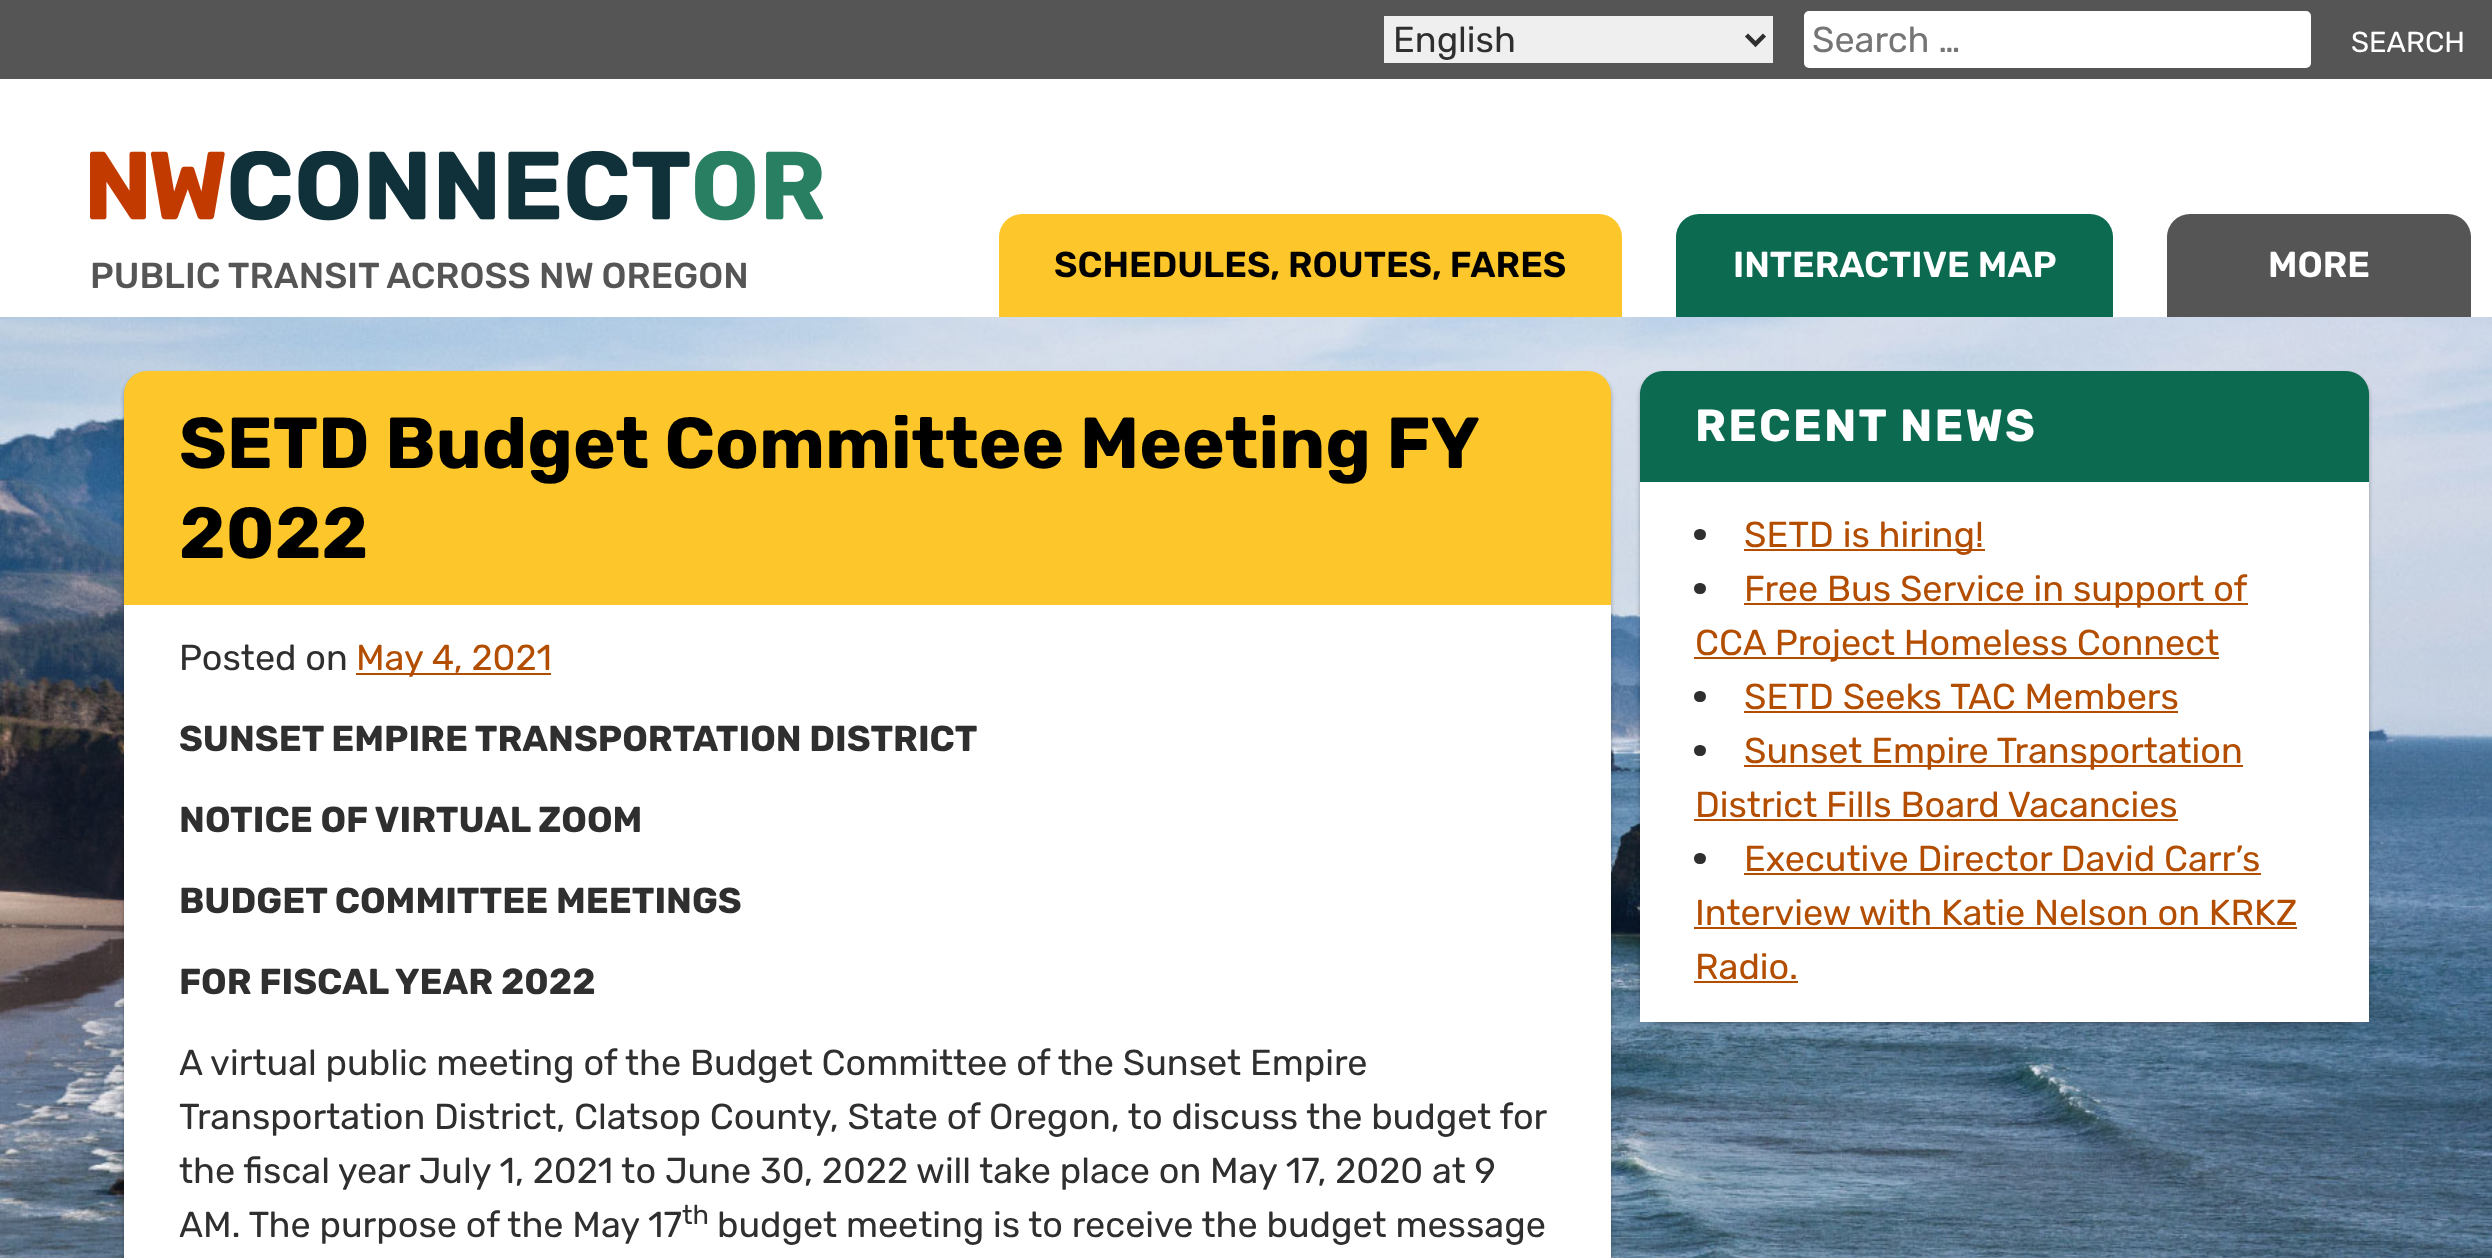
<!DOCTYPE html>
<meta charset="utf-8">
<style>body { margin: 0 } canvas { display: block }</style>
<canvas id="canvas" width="2492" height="1258"></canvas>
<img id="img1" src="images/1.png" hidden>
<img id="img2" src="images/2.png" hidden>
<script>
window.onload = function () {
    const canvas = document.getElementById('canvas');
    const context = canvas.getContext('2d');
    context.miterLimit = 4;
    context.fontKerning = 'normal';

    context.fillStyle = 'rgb(255, 255, 255)';
    context.fillRect(0, 0, 2492, 1258);
    context.fillStyle = 'rgb(85, 85, 85)';
    context.fillRect(0, 0, 2492, 79);
    context.fillStyle = 'rgb(239, 239, 239)';
    context.fillRect(1384, 16, 389, 47);
    context.beginPath();
    context.moveTo(1746.5, 35);
    context.lineTo(1755.5, 44);
    context.lineTo(1764.5, 35);
    context.strokeStyle = 'rgb(47, 47, 47)';
    context.lineWidth = 4.5;
    context.stroke();
    context.fillStyle = 'rgb(255, 255, 255)';
    context.beginPath();
    context.roundRect(1803, 10, 509, 59, 6);
    context.fill();
    context.strokeStyle = 'rgb(85, 85, 85)';
    context.lineWidth = 2;
    context.stroke();
    context.drawImage(document.getElementById('img1'), 90, 151, 734, 70);
    context.fillStyle = 'rgb(253, 198, 42)';
    context.beginPath();
    context.roundRect(999, 214, 623, 103, [23, 23, 0, 0]);
    context.fill();
    context.fillStyle = 'rgb(11, 106, 79)';
    context.beginPath();
    context.roundRect(1676, 214, 437, 103, [23, 23, 0, 0]);
    context.fill();
    context.fillStyle = 'rgb(85, 85, 85)';
    context.beginPath();
    context.roundRect(2167, 214, 304, 103, [23, 23, 0, 0]);
    context.fill();
    context.drawImage(document.getElementById('img2'), 0, 317, 2492, 941);
    context.fillStyle = 'rgba(0, 0, 0, 0.3)';
    context.filter = 'blur(2px)';
    context.beginPath();
    context.roundRect(124, 374, 1487, 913, 23);
    context.fill();
    context.filter = 'none';
    context.fillStyle = 'rgb(253, 198, 42)';
    context.beginPath();
    context.roundRect(124, 371, 1487, 234, [23, 23, 0, 0]);
    context.fill();
    context.fillStyle = 'rgb(255, 255, 255)';
    context.fillRect(124, 605, 1487, 653);
    context.fillStyle = 'rgb(179, 77, 0)';
    context.fillRect(356, 673, 195, 2);
    context.fillStyle = 'rgba(0, 0, 0, 0.3)';
    context.filter = 'blur(2px)';
    context.beginPath();
    context.roundRect(1640, 374, 729, 650, 23);
    context.fill();
    context.filter = 'none';
    context.fillStyle = 'rgb(11, 106, 79)';
    context.beginPath();
    context.roundRect(1640, 371, 729, 111, [23, 23, 0, 0]);
    context.fill();
    context.fillStyle = 'rgb(255, 255, 255)';
    context.fillRect(1640, 482, 729, 540);
    context.fillStyle = 'rgb(47, 47, 47)';
    context.beginPath();
    context.roundRect(1694, 529, 12, 11, 5.5);
    context.fill();
    context.fillStyle = 'rgb(179, 77, 0)';
    context.fillRect(1744, 549, 241, 2);
    context.fillStyle = 'rgb(47, 47, 47)';
    context.beginPath();
    context.roundRect(1694, 583, 12, 11, 5.5);
    context.fill();
    context.fillStyle = 'rgb(179, 77, 0)';
    context.fillRect(1744, 603, 504, 2);
    context.fillRect(1694, 657, 525, 2);
    context.fillStyle = 'rgb(47, 47, 47)';
    context.beginPath();
    context.roundRect(1694, 691, 12, 11, 5.5);
    context.fill();
    context.fillStyle = 'rgb(179, 77, 0)';
    context.fillRect(1744, 711, 434, 2);
    context.fillStyle = 'rgb(47, 47, 47)';
    context.beginPath();
    context.roundRect(1694, 745, 12, 11, 5.5);
    context.fill();
    context.fillStyle = 'rgb(179, 77, 0)';
    context.fillRect(1744, 765, 499, 2);
    context.fillRect(1694, 819, 484, 2);
    context.fillStyle = 'rgb(47, 47, 47)';
    context.beginPath();
    context.roundRect(1694, 853, 12, 11, 5.5);
    context.fill();
    context.fillStyle = 'rgb(179, 77, 0)';
    context.fillRect(1744, 873, 517, 2);
    context.fillRect(1694, 927, 603, 2);
    context.fillRect(1694, 981, 104, 2);
    context.font = '36px Rubik';
    context.fillStyle = 'rgb(47, 47, 47)';
    context.fillText('English', 1393, 52);
    context.fillStyle = 'rgb(117, 117, 117)';
    context.fillText('Search …', 1812, 52);
    context.font = '29px Rubik';
    context.fillStyle = 'rgb(255, 255, 255)';
    context.fillText('SEARCH', 2351, 52);
    context.font = '500 36px Rubik';
    context.fillStyle = 'rgb(85, 85, 85)';
    context.fillText('PUBLIC TRANSIT ACROSS NW OREGON', 90, 288);
    context.font = '600 36px Rubik';
    context.fillStyle = 'rgb(0, 0, 0)';
    context.fillText('SCHEDULES, ROUTES, FARES', 1054, 277);
    context.fillStyle = 'rgb(255, 255, 255)';
    context.fillText('INTERACTIVE MAP', 1733, 277);
    context.fillText('MORE', 2268, 277);
    context.font = 'bold 72px Rubik';
    context.fillStyle = 'rgb(0, 0, 0)';
    context.fillText('SETD Budget Committee Meeting FY', 179, 468);
    context.fillText('2022', 179, 558);
    context.font = '36px Rubik';
    context.fillStyle = 'rgb(47, 47, 47)';
    context.fillText('Posted on', 179, 670);
    context.fillStyle = 'rgb(179, 77, 0)';
    context.fillText('May 4, 2021', 356, 670);
    context.font = 'bold 36px Rubik';
    context.fillStyle = 'rgb(47, 47, 47)';
    context.fillText('SUNSET EMPIRE TRANSPORTATION DISTRICT', 179, 751);
    context.fillText('NOTICE OF VIRTUAL ZOOM', 179, 832);
    context.fillText('BUDGET COMMITTEE MEETINGS', 179, 913);
    context.fillText('FOR FISCAL YEAR 2022', 179, 994);
    context.font = '36px Rubik';
    context.fillText('A virtual public meeting of the Budget Committee of the Sunset Empire', 179, 1075);
    context.fillText('Transportation District, Clatsop County, State of Oregon, to discuss the budget for', 179, 1129);
    context.fillText('the fiscal year July 1, 2021 to June 30, 2022 will take place on May 17, 2020 at 9', 179, 1183);
    context.fillText('AM. The purpose of the May 17', 179, 1237);
    context.font = '27px Rubik';
    context.fillText('th', 682, 1224);
    context.font = '36px Rubik';
    context.fillText('budget meeting is to receive the budget message', 717, 1237);
    context.letterSpacing = '2.25px';
    context.font = 'bold 45px Rubik';
    context.fillStyle = 'rgb(255, 255, 255)';
    context.fillText('RECENT NEWS', 1695, 441);
    context.letterSpacing = '0px';
    context.font = '36px Rubik';
    context.fillStyle = 'rgb(179, 77, 0)';
    context.fillText('SETD is hiring!', 1744, 547);
    context.fillText('Free Bus Service in support of', 1744, 601);
    context.fillText('CCA Project Homeless Connect', 1695, 655);
    context.fillText('SETD Seeks TAC Members', 1744, 709);
    context.fillText('Sunset Empire Transportation', 1744, 763);
    context.fillText('District Fills Board Vacancies', 1695, 817);
    context.fillText('Executive Director David Carr’s', 1744, 871);
    context.fillText('Interview with Katie Nelson on KRKZ', 1695, 925);
    context.fillText('Radio.', 1695, 979);
};
</script>
